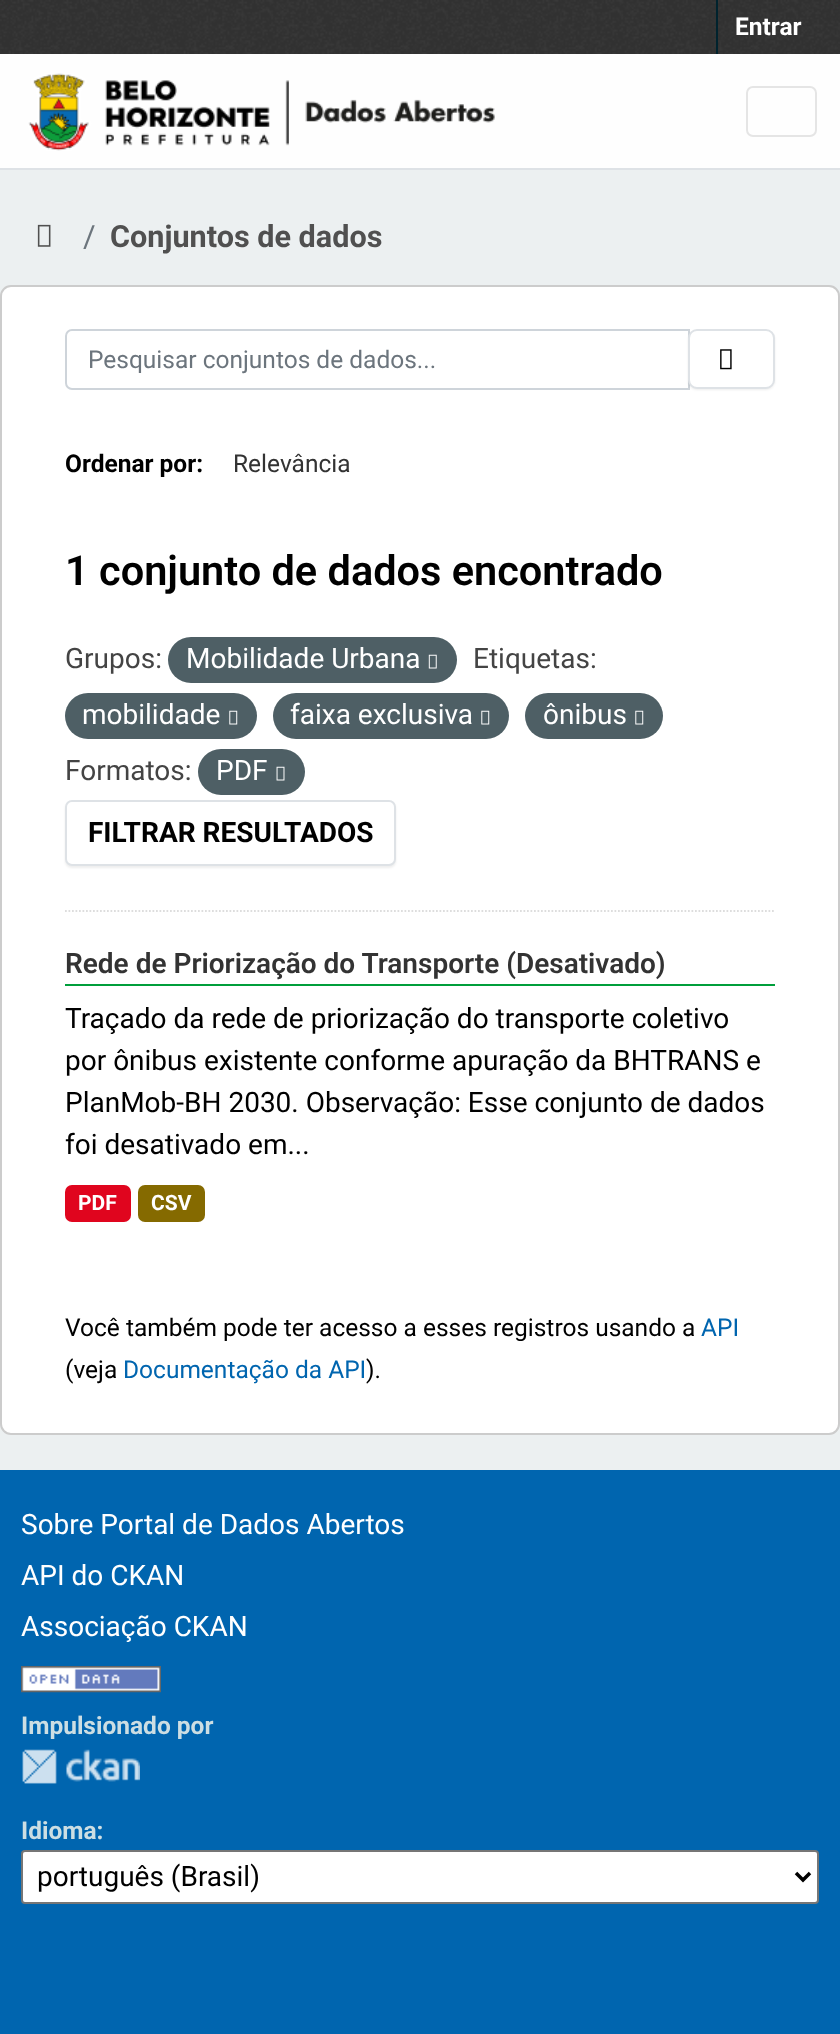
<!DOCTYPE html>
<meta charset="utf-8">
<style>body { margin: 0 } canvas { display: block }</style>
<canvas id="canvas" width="840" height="2034"></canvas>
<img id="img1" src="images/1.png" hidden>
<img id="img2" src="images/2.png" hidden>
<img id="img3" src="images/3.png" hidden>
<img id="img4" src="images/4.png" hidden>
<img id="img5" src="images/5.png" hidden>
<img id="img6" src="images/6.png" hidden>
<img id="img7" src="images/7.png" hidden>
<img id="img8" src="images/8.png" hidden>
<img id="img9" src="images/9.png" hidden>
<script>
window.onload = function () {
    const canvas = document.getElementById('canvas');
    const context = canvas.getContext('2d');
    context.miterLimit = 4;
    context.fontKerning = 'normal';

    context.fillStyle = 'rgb(0, 101, 175)';
    context.fillRect(0, 0, 840, 2034);
    context.fillStyle = 'rgb(236, 240, 241)';
    context.fillRect(0, 170, 840, 1300);
    context.fillStyle = 'rgb(51, 51, 51)';
    context.fillRect(0, 0, 840, 54);
    context.drawImage(document.getElementById('img1'), 0, 0, 840, 54);
    context.fillStyle = 'rgb(0, 35, 46)';
    context.fillRect(716, 0, 2, 54);
    context.fillStyle = 'rgb(254, 254, 254)';
    context.fillRect(0, 54, 840, 114);
    context.fillStyle = 'rgb(222, 226, 230)';
    context.fillRect(0, 168, 840, 2);
    context.drawImage(document.getElementById('img2'), 28, 73, 467, 78);
    context.beginPath();
    context.roundRect(747, 87, 69, 49, 6);
    context.strokeStyle = 'rgb(229, 229, 229)';
    context.lineWidth = 2;
    context.stroke();
    context.drawImage(document.getElementById('img3'), 37, 224, 14, 23);
    context.fillStyle = 'rgb(255, 255, 255)';
    context.beginPath();
    context.roundRect(1, 286, 838, 1148, 10);
    context.fill();
    context.strokeStyle = 'rgb(204, 204, 204)';
    context.stroke();
    context.beginPath();
    context.moveTo(65, 911);
    context.lineTo(775, 911);
    context.strokeStyle = 'rgb(221, 221, 221)';
    context.lineWidth = 1.8;
    context.setLineDash([1.75, 1.75]);
    context.stroke();
    context.beginPath();
    context.roundRect(66, 330, 623, 59, [6, 0, 0, 6]);
    context.strokeStyle = 'rgb(206, 212, 218)';
    context.lineWidth = 2;
    context.setLineDash([]);
    context.stroke();
    context.fillStyle = 'rgba(0, 0, 0, 0.07)';
    context.filter = 'blur(1px)';
    context.beginPath();
    context.roundRect(688, 331, 87, 59, 9);
    context.fill();
    context.filter = 'none';
    context.fillStyle = 'rgb(255, 255, 255)';
    context.beginPath();
    context.roundRect(689, 330, 85, 58, 8);
    context.fill();
    context.strokeStyle = 'rgb(222, 226, 230)';
    context.stroke();
    context.drawImage(document.getElementById('img4'), 720, 349, 12, 21);
    context.fillStyle = 'rgb(78, 95, 101)';
    context.beginPath();
    context.roundRect(168, 637, 289, 46, 23);
    context.fill();
    context.drawImage(document.getElementById('img5'), 428, 654, 9, 15);
    context.beginPath();
    context.roundRect(65, 693, 192, 46, 23);
    context.fill();
    context.drawImage(document.getElementById('img6'), 229, 710, 9, 15);
    context.beginPath();
    context.roundRect(273, 693, 236, 46, 23);
    context.fill();
    context.drawImage(document.getElementById('img6'), 481, 710, 9, 15);
    context.beginPath();
    context.roundRect(525, 693, 138, 46, 23);
    context.fill();
    context.drawImage(document.getElementById('img6'), 635, 710, 9, 15);
    context.beginPath();
    context.roundRect(198, 749, 107, 46, 23);
    context.fill();
    context.drawImage(document.getElementById('img7'), 276, 766, 9, 15);
    context.fillStyle = 'rgba(0, 0, 0, 0.07)';
    context.filter = 'blur(1px)';
    context.beginPath();
    context.roundRect(65, 802, 331, 66, 7);
    context.fill();
    context.filter = 'none';
    context.fillStyle = 'rgb(255, 255, 255)';
    context.beginPath();
    context.roundRect(66, 801, 329, 64, 6);
    context.fill();
    context.stroke();
    context.fillStyle = 'rgb(0, 158, 59)';
    context.fillRect(65, 984, 710, 2);
    context.fillStyle = 'rgb(224, 5, 30)';
    context.beginPath();
    context.roundRect(65, 1185, 66, 37, 7);
    context.fill();
    context.fillStyle = 'rgb(133, 106, 0)';
    context.beginPath();
    context.roundRect(138, 1185, 67, 37, 7);
    context.fill();
    context.drawImage(document.getElementById('img8'), 21, 1666, 140, 27);
    context.drawImage(document.getElementById('img9'), 22, 1749, 118, 35);
    context.fillStyle = 'rgb(255, 255, 255)';
    context.beginPath();
    context.roundRect(22, 1851, 796, 52, 3);
    context.fill();
    context.strokeStyle = 'rgb(118, 118, 118)';
    context.stroke();
    context.beginPath();
    context.moveTo(796, 1873);
    context.lineTo(803, 1880);
    context.lineTo(810, 1873);
    context.strokeStyle = 'rgb(0, 0, 0)';
    context.lineWidth = 3.5;
    context.stroke();
    context.font = 'bold 24.5px Roboto';
    context.fillText('Entrar', 735, 35);
    context.font = '30.6px Roboto';
    context.fillStyle = 'rgb(108, 117, 125)';
    context.fillText('/', 83, 247);
    context.font = 'bold 30.6px Roboto';
    context.fillStyle = 'rgb(80, 80, 80)';
    context.fillText('Conjuntos de dados', 110, 247);
    context.font = '24.5px Roboto';
    context.fillStyle = 'rgb(108, 117, 125)';
    context.fillText('Pesquisar conjuntos de dados...', 88, 368);
    context.font = 'bold 24.5px Roboto';
    context.fillStyle = 'rgb(0, 0, 0)';
    context.fillText('Ordenar por:', 65, 472);
    context.font = '24.5px Roboto';
    context.fillStyle = 'rgb(51, 51, 51)';
    context.fillText('Relevância', 233, 472);
    context.font = '600 41.5px Roboto';
    context.fillStyle = 'rgb(0, 0, 0)';
    context.fillText('1 conjunto de dados encontrado', 65, 585);
    context.font = '28px Roboto';
    context.fillStyle = 'rgb(68, 68, 68)';
    context.fillText('Grupos:', 65, 668);
    context.fillStyle = 'rgb(255, 255, 255)';
    context.fillText('Mobilidade Urbana', 186, 668);
    context.fillStyle = 'rgb(68, 68, 68)';
    context.fillText('Etiquetas:', 473, 668);
    context.fillStyle = 'rgb(255, 255, 255)';
    context.fillText('mobilidade', 82, 724);
    context.fillText('faixa exclusiva', 290, 724);
    context.fillText('ônibus', 543, 724);
    context.fillStyle = 'rgb(68, 68, 68)';
    context.fillText('Formatos:', 65, 780);
    context.fillStyle = 'rgb(255, 255, 255)';
    context.fillText('PDF', 216, 780);
    context.font = 'bold 28px Roboto';
    context.fillStyle = 'rgb(0, 0, 0)';
    context.fillText('FILTRAR RESULTADOS', 88, 842);
    context.font = '600 28px Roboto';
    context.fillStyle = 'rgb(51, 51, 51)';
    context.fillText('Rede de Priorização do Transporte (Desativado)', 65, 973);
    context.font = '28px Roboto';
    context.fillStyle = 'rgb(0, 0, 0)';
    context.fillText('Traçado da rede de priorização do transporte coletivo', 65, 1028);
    context.fillText('por ônibus existente conforme apuração da BHTRANS e', 65, 1070);
    context.fillText('PlanMob-BH 2030. Observação: Esse conjunto de dados', 65, 1112);
    context.fillText('foi desativado em...', 65, 1154);
    context.font = 'bold 21px Roboto';
    context.fillStyle = 'rgb(255, 255, 255)';
    context.fillText('PDF', 78, 1210);
    context.fillText('CSV', 151, 1210);
    context.font = '24.5px Roboto';
    context.fillStyle = 'rgb(0, 0, 0)';
    context.fillText('Você também pode ter acesso a esses registros usando a', 65, 1336);
    context.fillStyle = 'rgb(0, 101, 175)';
    context.fillText('API', 701, 1336);
    context.fillStyle = 'rgb(0, 0, 0)';
    context.fillText('(veja', 65, 1378);
    context.fillStyle = 'rgb(0, 101, 175)';
    context.fillText('Documentação da API', 123, 1378);
    context.fillStyle = 'rgb(0, 0, 0)';
    context.fillText(').', 366, 1378);
    context.font = '28px Roboto';
    context.fillStyle = 'rgb(255, 255, 255)';
    context.fillText('Sobre Portal de Dados Abertos', 21, 1534);
    context.fillText('API do CKAN', 21, 1585);
    context.fillText('Associação CKAN', 21, 1636);
    context.font = 'bold 24.5px Roboto';
    context.fillStyle = 'rgb(204, 222, 227)';
    context.fillText('Impulsionado por', 21, 1734);
    context.fillText('Idioma:', 21, 1839);
    context.font = '28px Roboto';
    context.fillStyle = 'rgb(0, 0, 0)';
    context.fillText('português (Brasil)', 37, 1886);
};
</script>
